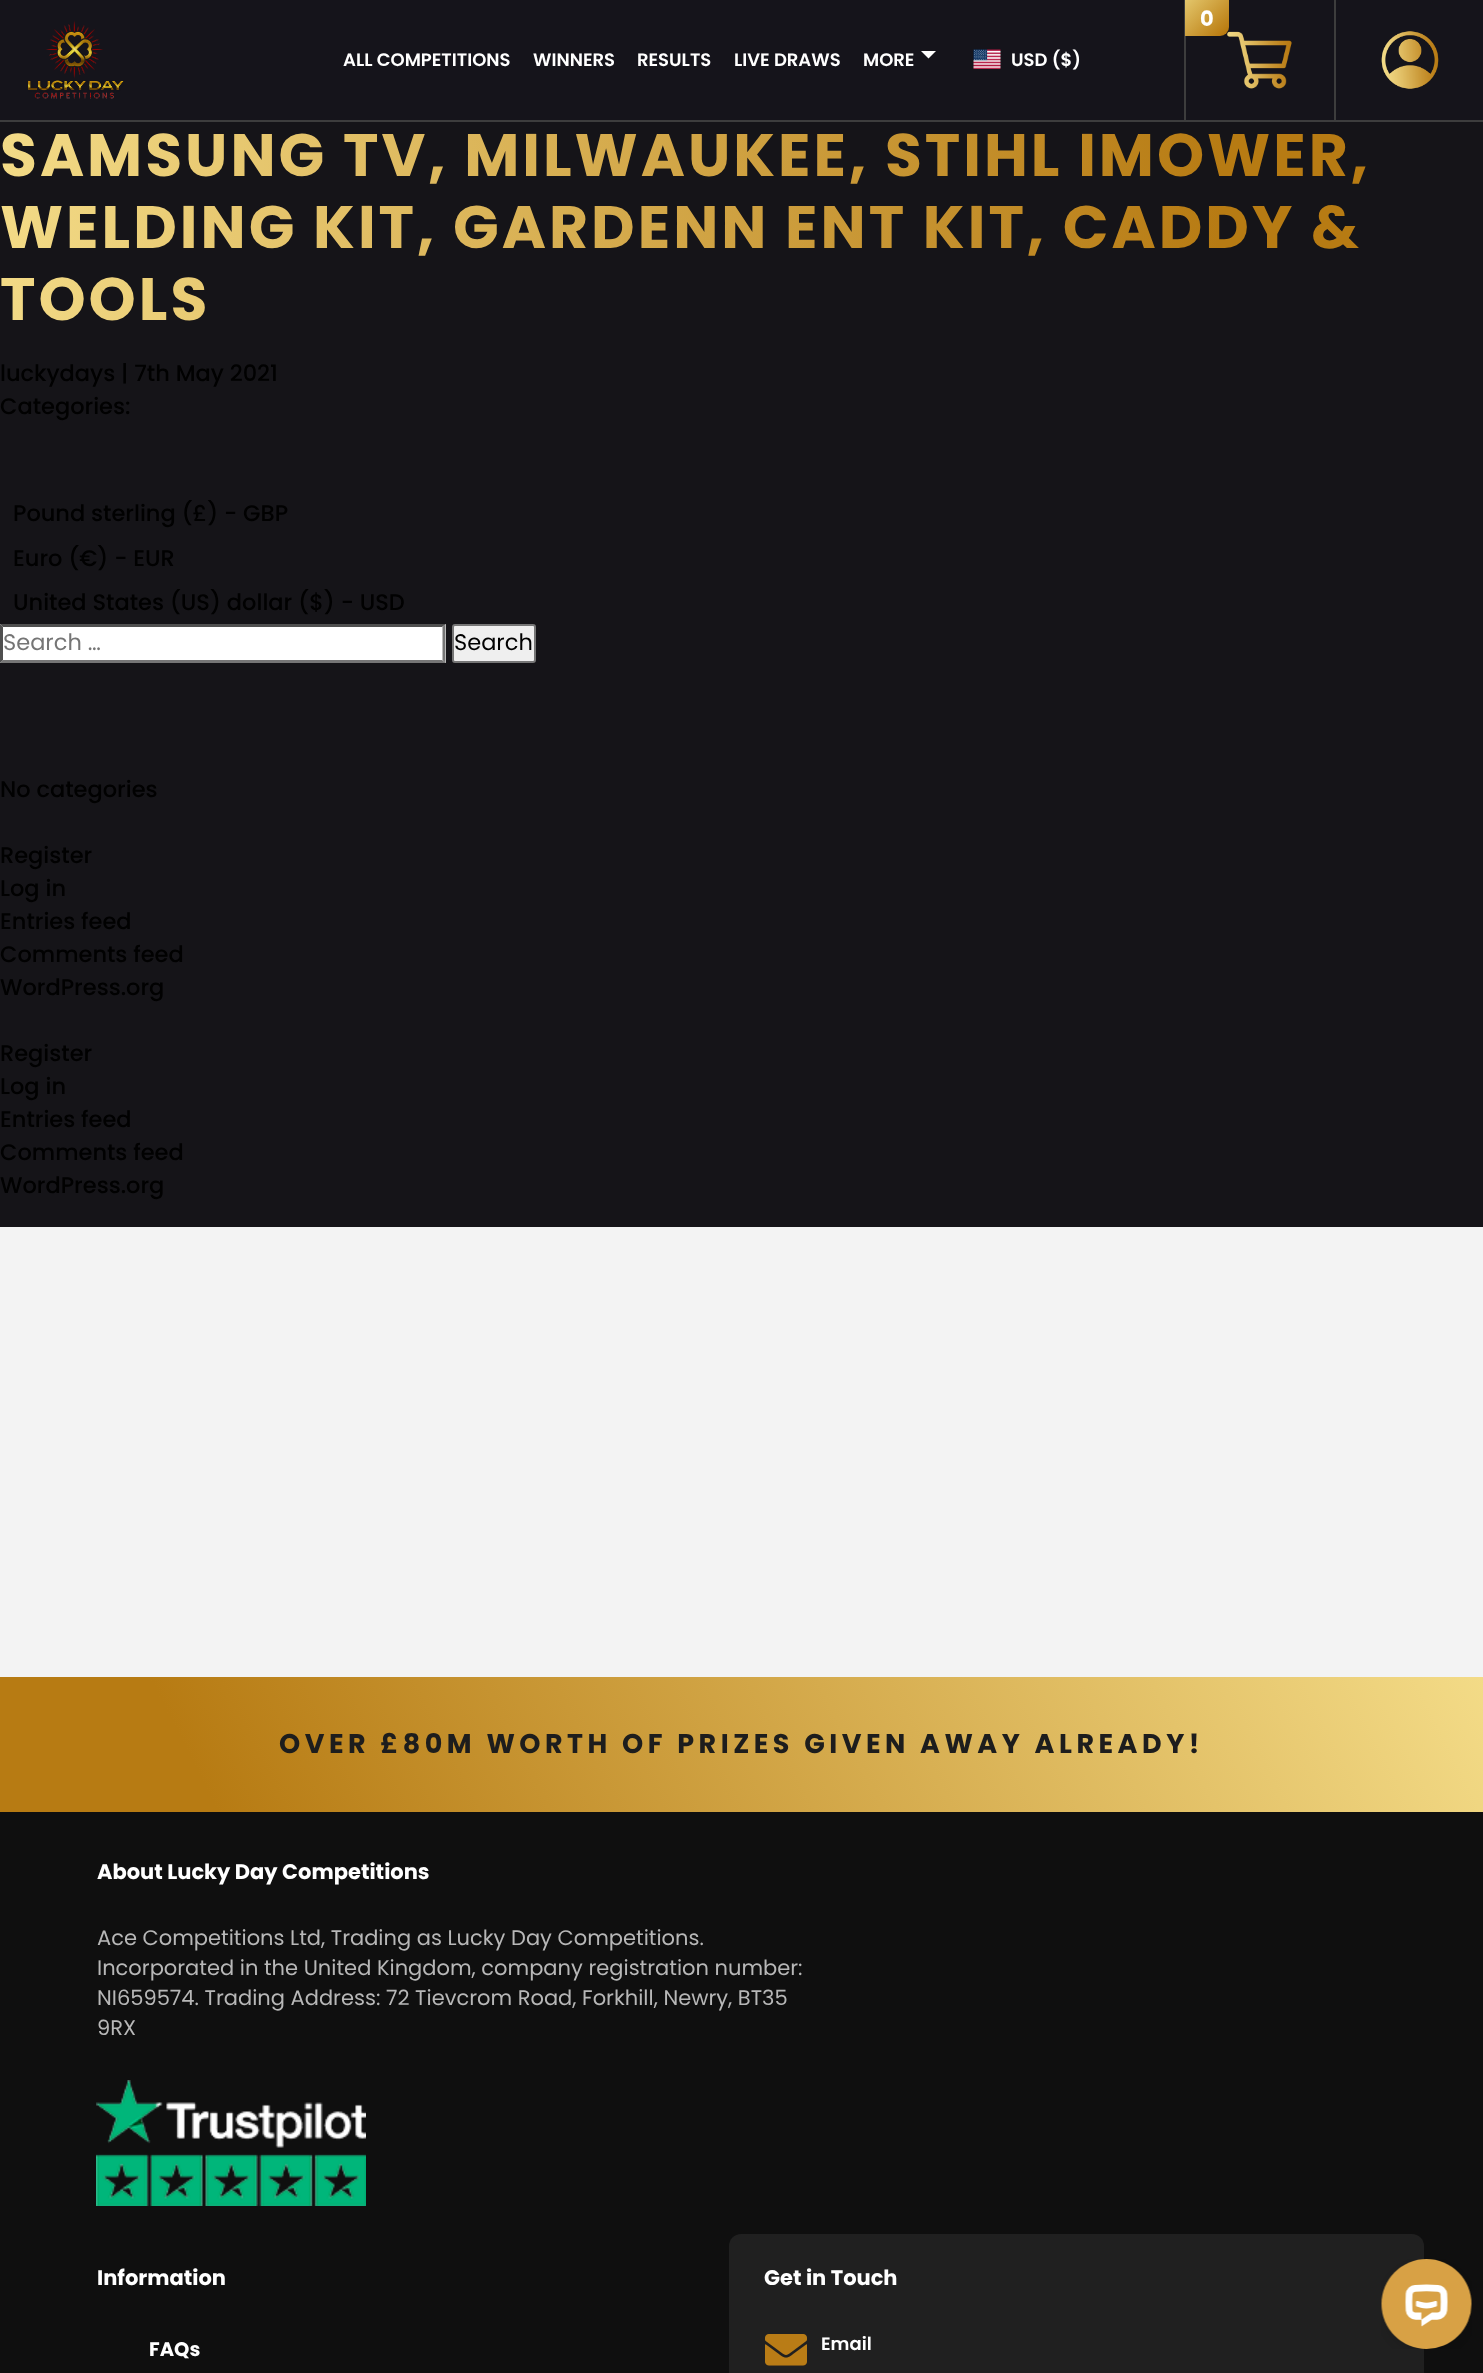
<!DOCTYPE html>
<meta charset="utf-8">
<style>body { margin: 0 } canvas { display: block }</style>
<canvas id="canvas" width="1483" height="2373"></canvas>
<img id="img1" src="images/1.png" hidden>
<img id="img2" src="images/2.png" hidden>
<img id="img3" src="images/3.png" hidden>
<img id="img4" src="images/4.png" hidden>
<img id="img5" src="images/5.png" hidden>
<img id="img6" src="images/6.png" hidden>
<img id="img7" src="images/7.png" hidden>
<script>
window.onload = function () {
    const canvas = document.getElementById('canvas');
    const context = canvas.getContext('2d');
    context.miterLimit = 4;
    context.fontKerning = 'normal';
    let gradient;

    context.fillStyle = 'rgb(21, 20, 24)';
    context.fillRect(0, 0, 1483, 2373);
    context.fillStyle = 'rgb(21, 20, 27)';
    context.fillRect(0, 0, 1483, 120);
    context.fillStyle = 'rgb(61, 61, 61)';
    context.fillRect(0, 120, 1483, 2);
    context.fillRect(1184, 0, 2, 120);
    context.drawImage(document.getElementById('img1'), 1227, 31, 65, 58);
    gradient = context.createLinearGradient(1187, -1.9, 1227, 38);
    gradient.addColorStop(0, 'rgb(227, 198, 107)');
    gradient.addColorStop(1, 'rgb(182, 116, 7)');
    context.fillStyle = gradient;
    context.beginPath();
    context.roundRect(1185, 0, 44, 36, [0, 0, 9, 0]);
    context.fill();
    context.fillStyle = 'rgb(61, 61, 61)';
    context.fillRect(1334, 0, 2, 120);
    context.drawImage(document.getElementById('img2'), 1381, 31, 58, 58);
    context.drawImage(document.getElementById('img3'), 28, 20, 96, 79);
    context.fillStyle = 'rgb(255, 255, 255)';
    context.beginPath();
    context.moveTo(921, 51);
    context.lineTo(936, 51);
    context.lineTo(928.5, 58.5);
    context.closePath();
    context.fill();
    context.drawImage(document.getElementById('img4'), 973, 49, 28, 20);
    context.fillRect(0, 624, 446, 39);
    context.fillStyle = 'rgb(79, 79, 79)';
    context.beginPath();
    context.moveTo(0, 624);
    context.lineTo(446, 624);
    context.lineTo(442, 627);
    context.lineTo(3, 627);
    context.closePath();
    context.fill();
    context.fillStyle = 'rgb(118, 118, 118)';
    context.beginPath();
    context.moveTo(445.5, 624);
    context.lineTo(445.5, 663);
    context.lineTo(442.5, 660);
    context.lineTo(442.5, 627);
    context.closePath();
    context.fill();
    context.beginPath();
    context.moveTo(446, 663);
    context.lineTo(0, 663);
    context.lineTo(3, 660);
    context.lineTo(442, 660);
    context.closePath();
    context.fill();
    context.fillStyle = 'rgb(79, 79, 79)';
    context.beginPath();
    context.moveTo(0, 663);
    context.lineTo(0, 624);
    context.lineTo(3, 627);
    context.lineTo(3, 660);
    context.closePath();
    context.fill();
    context.fillStyle = 'rgb(239, 239, 239)';
    context.beginPath();
    context.roundRect(453, 625, 82, 37, 2);
    context.fill();
    context.strokeStyle = 'rgb(118, 118, 118)';
    context.lineWidth = 2;
    context.stroke();
    context.fillStyle = 'rgb(243, 243, 243)';
    context.fillRect(0, 1227, 1483, 450);
    gradient = context.createLinearGradient(126, 2058, 1358, 1431);
    gradient.addColorStop(0.14, 'rgb(183, 123, 19)');
    gradient.addColorStop(1, 'rgb(243, 219, 135)');
    context.fillStyle = gradient;
    context.fillRect(0, 1677, 1483, 135);
    context.fillStyle = 'rgb(15, 15, 15)';
    context.fillRect(0, 1812, 1483, 561);
    context.drawImage(document.getElementById('img5'), 96, 2080, 270, 126);
    context.fillStyle = 'rgb(32, 32, 32)';
    context.beginPath();
    context.roundRect(729, 2234, 695, 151, 12);
    context.fill();
    context.drawImage(document.getElementById('img6'), 765, 2334, 42, 32);
    context.drawImage(document.getElementById('img7'), 1381, 2259, 91, 90);
    context.font = 'bold 21px Poppins';
    context.fillStyle = 'rgb(255, 255, 255)';
    context.fillText('0', 1200, 26);
    context.font = '600 18px Poppins';
    context.fillText('ALL COMPETITIONS', 343, 66);
    context.fillText('WINNERS', 533, 66);
    context.fillText('RESULTS', 637, 66);
    context.fillText('LIVE DRAWS', 734, 66);
    context.fillText('MORE', 863, 66);
    context.fillText('USD ($)', 1011, 66);
    context.letterSpacing = '3px';
    context.font = 'bold 60px Poppins';
    gradient = context.createLinearGradient(-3.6, 187, 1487, 266);
    gradient.addColorStop(0, 'rgb(243, 219, 135)');
    gradient.addColorStop(0.82, 'rgb(183, 123, 19)');
    context.fillStyle = gradient;
    context.fillText('SAMSUNG TV, MILWAUKEE, STIHL IMOWER,', 0, 176);
    context.fillText('WELDING KIT, GARDENN ENT KIT, CADDY &', 0, 248);
    context.fillText('TOOLS', 0, 320);
    context.letterSpacing = '0px';
    context.font = '500 22.5px Poppins';
    context.fillStyle = 'rgb(1, 1, 1)';
    context.fillText('luckydays | 7th May 2021', 0, 381);
    context.fillText('Categories:', 0, 414);
    context.fillText('Pound sterling (£) - GBP', 13, 521);
    context.fillText('Euro (€) - EUR', 13, 566);
    context.fillText('United States (US) dollar ($) - USD', 13, 610);
    context.font = '22.5px Poppins';
    context.fillStyle = 'rgb(117, 117, 117)';
    context.fillText('Search …', 3, 650);
    context.fillStyle = 'rgb(1, 1, 1)';
    context.fillText('Search', 454, 650);
    context.font = '500 22.5px Poppins';
    context.fillText('No categories', 0, 797);
    context.fillText('Register', 0, 863);
    context.fillText('Log in', 0, 896);
    context.fillText('Entries feed', 0, 929);
    context.fillText('Comments feed', 0, 962);
    context.fillText('WordPress.org', 0, 995);
    context.fillText('Register', 0, 1061);
    context.fillText('Log in', 0, 1094);
    context.fillText('Entries feed', 0, 1127);
    context.fillText('Comments feed', 0, 1160);
    context.fillText('WordPress.org', 0, 1193);
    context.letterSpacing = '4.5px';
    context.font = 'bold 27px Poppins';
    context.fillStyle = 'rgb(29, 29, 29)';
    context.fillText('OVER £80M WORTH OF PRIZES GIVEN AWAY ALREADY!', 279, 1753);
    context.letterSpacing = '0px';
    context.font = 'bold 21px Poppins';
    context.fillStyle = 'rgb(255, 255, 255)';
    context.fillText('About Lucky Day Competitions', 97, 1879);
    context.font = '21px Poppins';
    context.fillStyle = 'rgb(183, 183, 183)';
    context.fillText('Ace Competitions Ltd, Trading as Lucky Day Competitions.', 97, 1945);
    context.fillText('Incorporated in the United Kingdom, company registration number:', 97, 1975);
    context.fillText('NI659574. Trading Address: 72 Tievcrom Road, Forkhill, Newry, BT35', 97, 2005);
    context.fillText('9RX', 97, 2035);
    context.font = 'bold 21px Poppins';
    context.fillStyle = 'rgb(255, 255, 255)';
    context.fillText('Information', 97, 2285);
    context.font = 'bold 19.5px Poppins';
    context.fillText('FAQs', 149, 2356);
    context.font = 'bold 21px Poppins';
    context.fillText('Get in Touch', 764, 2285);
    context.font = '600 18px Poppins';
    context.fillText('Email', 821, 2350);
};
</script>
